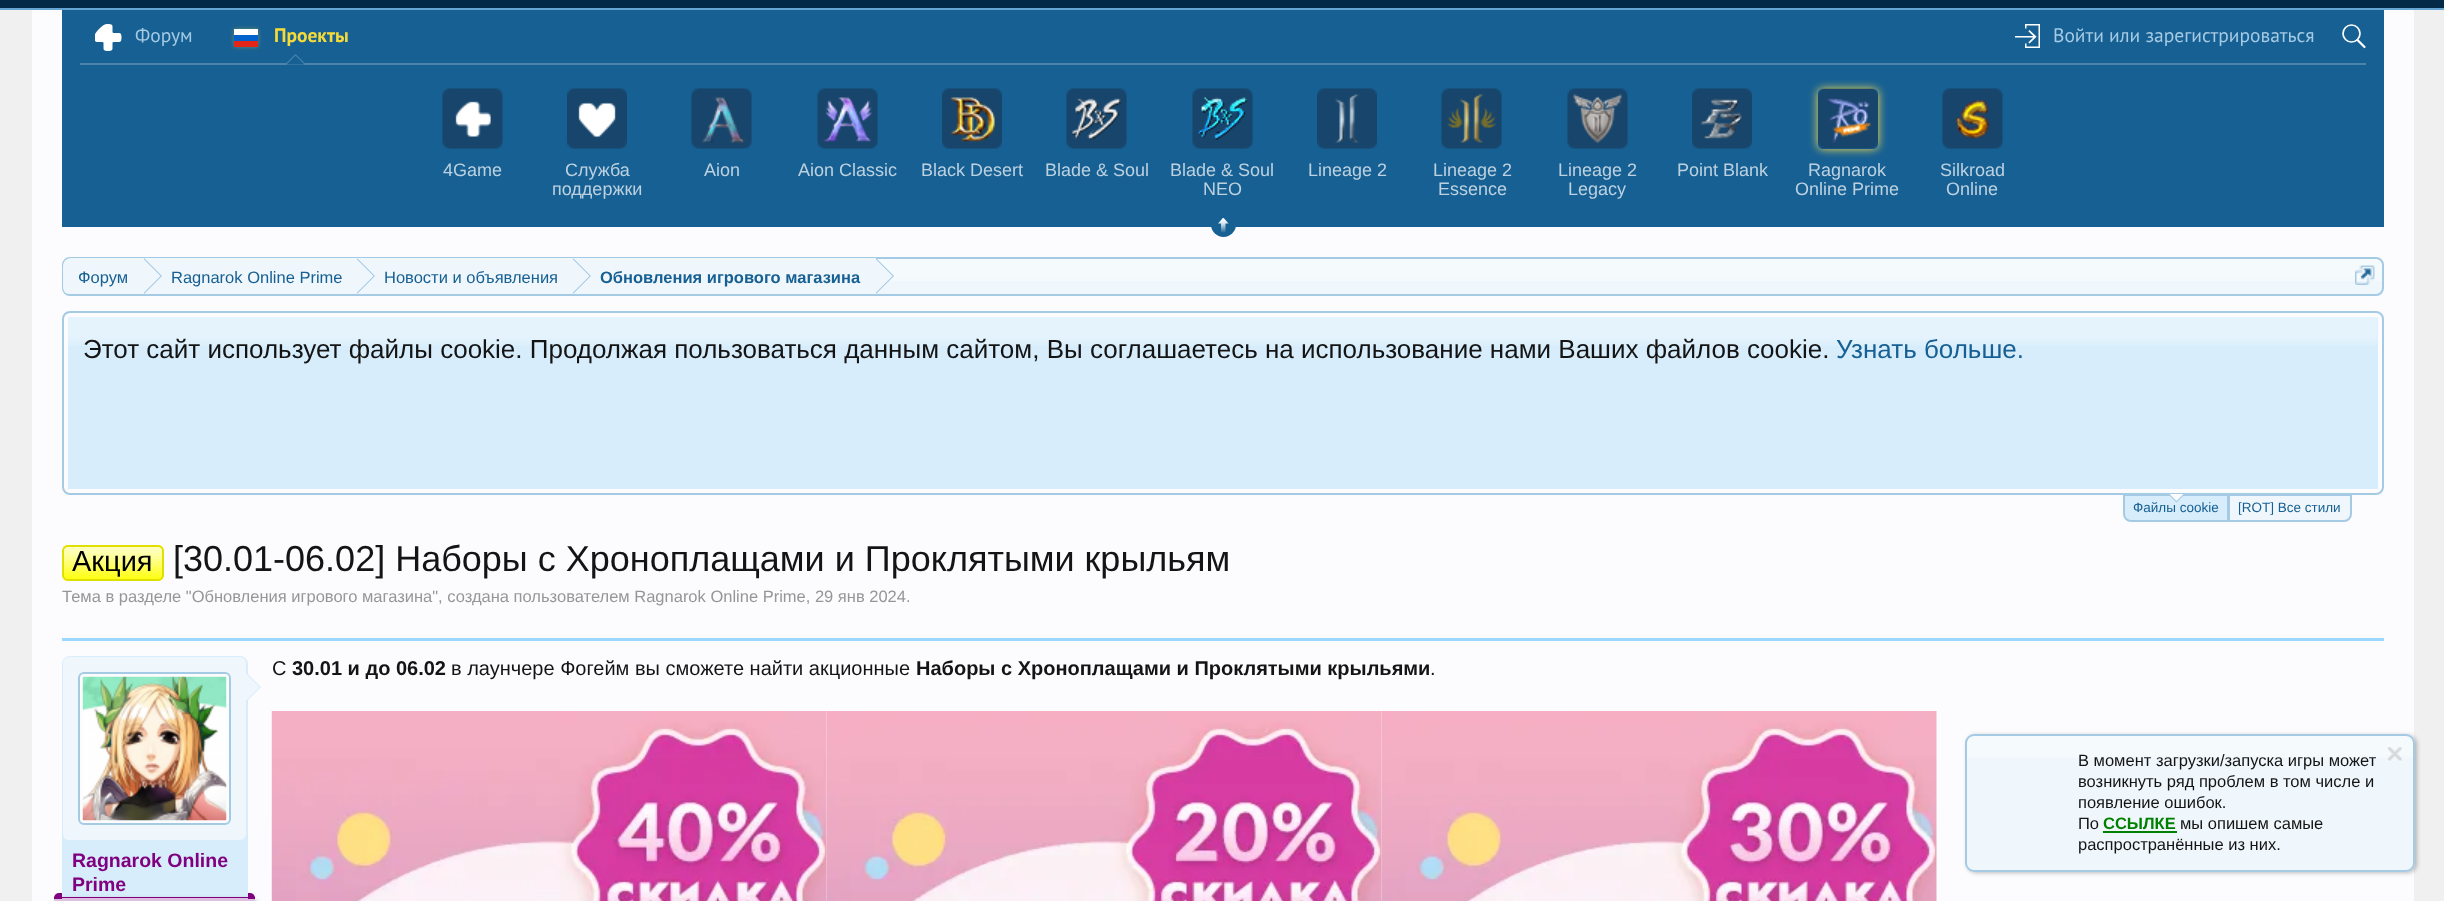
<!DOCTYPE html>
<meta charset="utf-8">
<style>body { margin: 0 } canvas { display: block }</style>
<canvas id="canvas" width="2444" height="901"></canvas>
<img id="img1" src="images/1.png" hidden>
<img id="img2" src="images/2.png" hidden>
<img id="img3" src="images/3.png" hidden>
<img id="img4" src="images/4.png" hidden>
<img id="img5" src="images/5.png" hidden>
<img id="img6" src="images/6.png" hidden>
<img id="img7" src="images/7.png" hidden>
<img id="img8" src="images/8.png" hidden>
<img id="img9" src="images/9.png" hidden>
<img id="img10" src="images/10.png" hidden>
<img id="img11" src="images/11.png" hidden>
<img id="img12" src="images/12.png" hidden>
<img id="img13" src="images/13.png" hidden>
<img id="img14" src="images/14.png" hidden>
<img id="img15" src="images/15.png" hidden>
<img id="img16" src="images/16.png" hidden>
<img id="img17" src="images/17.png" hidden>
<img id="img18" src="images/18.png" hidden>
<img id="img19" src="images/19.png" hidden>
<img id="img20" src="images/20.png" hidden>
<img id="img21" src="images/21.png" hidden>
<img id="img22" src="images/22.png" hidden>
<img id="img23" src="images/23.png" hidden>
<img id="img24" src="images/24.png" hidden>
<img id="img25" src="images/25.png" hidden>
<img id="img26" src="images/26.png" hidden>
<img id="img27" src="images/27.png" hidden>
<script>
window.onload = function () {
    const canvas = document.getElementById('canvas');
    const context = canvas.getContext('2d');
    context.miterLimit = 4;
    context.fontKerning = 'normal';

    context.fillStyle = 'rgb(240, 240, 240)';
    context.fillRect(0, 0, 2444, 901);
    context.fillStyle = 'rgb(3, 42, 70)';
    context.fillRect(0, 0, 2444, 8);
    context.fillStyle = 'rgb(101, 165, 209)';
    context.fillRect(0, 8, 2444, 2);
    context.fillStyle = 'rgb(252, 252, 255)';
    context.fillRect(32, 10, 2382, 891);
    context.fillStyle = 'rgb(23, 96, 147)';
    context.fillRect(62, 10, 2322, 217);
    context.fillStyle = 'rgb(76, 132, 172)';
    context.fillRect(80, 63, 2286, 2);
    context.drawImage(document.getElementById('img1'), 95, 24, 27, 27);
    context.fillStyle = 'rgba(245, 219, 57, 0.35)';
    context.filter = 'blur(2px)';
    context.beginPath();
    context.rect(234, 29, 24, 18);
    context.fill();
    context.filter = 'none';
    context.fillStyle = 'rgb(255, 255, 255)';
    context.fillRect(234, 29, 24, 6);
    context.fillStyle = 'rgb(2, 98, 203)';
    context.fillRect(234, 35, 24, 6);
    context.fillStyle = 'rgb(229, 37, 23)';
    context.fillRect(234, 41, 24, 6);
    context.fillStyle = 'rgb(76, 132, 172)';
    context.beginPath();
    context.moveTo(304.5, 63);
    context.lineTo(286.5, 63);
    context.lineTo(295.5, 54);
    context.closePath();
    context.fill();
    context.fillStyle = 'rgb(23, 96, 147)';
    context.beginPath();
    context.moveTo(304.5, 64.5);
    context.lineTo(286.5, 64.5);
    context.lineTo(295.5, 55.5);
    context.closePath();
    context.fill();
    context.drawImage(document.getElementById('img2'), 2015, 24, 25, 24);
    context.beginPath();
    context.arc(2351.5, 33.5, 8.5, 0, 2 * Math.PI);
    context.strokeStyle = 'rgb(255, 255, 255)';
    context.lineWidth = 1.7;
    context.stroke();
    context.beginPath();
    context.moveTo(2357.5, 40);
    context.lineTo(2364.5, 47);
    context.lineWidth = 2.2;
    context.lineCap = 'round';
    context.stroke();
    context.beginPath();
    context.arc(1223.5, 224.5, 12.5, 0, 2 * Math.PI);
    context.fill();
    context.drawImage(document.getElementById('img3'), 1218, 218, 11, 15);
    context.drawImage(document.getElementById('img4'), 442, 88, 61, 61);
    context.drawImage(document.getElementById('img5'), 567, 88, 60, 61);
    context.drawImage(document.getElementById('img6'), 691, 88, 61, 61);
    context.drawImage(document.getElementById('img7'), 817, 88, 61, 61);
    context.drawImage(document.getElementById('img8'), 942, 88, 60, 61);
    context.drawImage(document.getElementById('img9'), 1066, 88, 61, 61);
    context.drawImage(document.getElementById('img10'), 1192, 88, 61, 61);
    context.drawImage(document.getElementById('img11'), 1317, 88, 60, 61);
    context.drawImage(document.getElementById('img12'), 1441, 88, 61, 61);
    context.drawImage(document.getElementById('img13'), 1567, 88, 61, 61);
    context.drawImage(document.getElementById('img14'), 1692, 88, 60, 61);
    context.save();
    context.beginPath();
    context.moveTo(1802, 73);
    context.lineTo(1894, 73);
    context.lineTo(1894, 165);
    context.lineTo(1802, 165);
    context.closePath();
    context.moveTo(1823, 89);
    context.lineTo(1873, 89);
    context.bezierCurveTo(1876, 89, 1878, 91, 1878, 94);
    context.lineTo(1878, 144);
    context.bezierCurveTo(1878, 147, 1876, 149, 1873, 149);
    context.lineTo(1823, 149);
    context.bezierCurveTo(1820, 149, 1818, 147, 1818, 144);
    context.lineTo(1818, 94);
    context.bezierCurveTo(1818, 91, 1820, 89, 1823, 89);
    context.closePath();
    context.clip('evenodd');
    context.fillStyle = 'rgb(253, 224, 77)';
    context.filter = 'blur(5px)';
    context.beginPath();
    context.roundRect(1818, 89, 60, 60, 5);
    context.fill();
    context.filter = 'none';
    context.restore();
    context.drawImage(document.getElementById('img15'), 1818, 88, 60, 61);
    context.drawImage(document.getElementById('img16'), 1942, 88, 61, 61);
    context.fillStyle = 'rgb(240, 247, 252)';
    context.beginPath();
    context.roundRect(62, 257, 2322, 39, 8);
    context.fill();
    context.drawImage(document.getElementById('img17'), 62, 258, 2321, 23);
    context.beginPath();
    context.roundRect(63, 258, 2320, 37, 7);
    context.strokeStyle = 'rgb(165, 202, 228)';
    context.lineWidth = 2;
    context.stroke();
    context.save();
    context.beginPath();
    context.roundRect(63, 258, 2319, 36, 6);
    context.clip();
    context.beginPath();
    context.roundRect(63, 258, 81, 38, [8, 0, 0, 8]);
    context.fill();
    context.restore();
    context.fillRect(144, 258, 732, 23);
    context.fillStyle = 'rgb(165, 202, 228)';
    context.beginPath();
    context.moveTo(144, 294);
    context.lineTo(144, 258);
    context.lineTo(162, 276);
    context.closePath();
    context.fill();
    context.fillStyle = 'rgb(240, 247, 252)';
    context.beginPath();
    context.moveTo(142.5, 294);
    context.lineTo(142.5, 258);
    context.lineTo(160.5, 276);
    context.closePath();
    context.fill();
    context.fillStyle = 'rgb(165, 202, 228)';
    context.beginPath();
    context.moveTo(357, 294);
    context.lineTo(357, 258);
    context.lineTo(375, 276);
    context.closePath();
    context.fill();
    context.fillStyle = 'rgb(240, 247, 252)';
    context.beginPath();
    context.moveTo(355.5, 294);
    context.lineTo(355.5, 258);
    context.lineTo(373.5, 276);
    context.closePath();
    context.fill();
    context.fillStyle = 'rgb(165, 202, 228)';
    context.beginPath();
    context.moveTo(573, 294);
    context.lineTo(573, 258);
    context.lineTo(591, 276);
    context.closePath();
    context.fill();
    context.fillStyle = 'rgb(240, 247, 252)';
    context.beginPath();
    context.moveTo(571.5, 294);
    context.lineTo(571.5, 258);
    context.lineTo(589.5, 276);
    context.closePath();
    context.fill();
    context.fillStyle = 'rgb(165, 202, 228)';
    context.beginPath();
    context.moveTo(876, 294);
    context.lineTo(876, 258);
    context.lineTo(894, 276);
    context.closePath();
    context.fill();
    context.fillStyle = 'rgb(240, 247, 252)';
    context.beginPath();
    context.moveTo(874.5, 294);
    context.lineTo(874.5, 258);
    context.lineTo(892.5, 276);
    context.closePath();
    context.fill();
    context.drawImage(document.getElementById('img18'), 2355, 265, 20, 20);
    context.beginPath();
    context.roundRect(63, 312, 2320, 182, 7);
    context.stroke();
    context.fillStyle = 'rgb(215, 237, 252)';
    context.fillRect(68, 317, 2310, 172);
    context.drawImage(document.getElementById('img19'), 2376, 317, 2, 29);
    context.drawImage(document.getElementById('img20'), 68, 317, 2308, 29);
    context.beginPath();
    context.roundRect(2124, 495, 104, 26, [0, 0, 0, 7]);
    context.fill();
    context.stroke();
    context.fillStyle = 'rgb(240, 247, 252)';
    context.beginPath();
    context.roundRect(2229, 495, 122, 26, [0, 0, 7, 0]);
    context.fill();
    context.stroke();
    context.fillStyle = 'rgb(255, 255, 0)';
    context.beginPath();
    context.roundRect(62, 545, 102, 36, 6);
    context.fill();
    context.drawImage(document.getElementById('img21'), 62, 546, 102, 34);
    context.beginPath();
    context.roundRect(63, 546, 100, 34, 5);
    context.strokeStyle = 'rgb(224, 224, 0)';
    context.stroke();
    context.fillStyle = 'rgb(156, 215, 255)';
    context.fillRect(62, 638, 2322, 3);
    context.drawImage(document.getElementById('img22'), 271, 711, 556, 190);
    context.drawImage(document.getElementById('img23'), 826, 711, 556, 190);
    context.drawImage(document.getElementById('img24'), 1381, 711, 556, 190);
    context.fillStyle = 'rgb(215, 237, 252)';
    context.beginPath();
    context.roundRect(63, 657, 184, 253, 7);
    context.fill();
    context.strokeStyle = 'rgb(215, 237, 252)';
    context.stroke();
    context.fillStyle = 'rgb(240, 247, 252)';
    context.beginPath();
    context.roundRect(63, 657, 183, 183, 6);
    context.fill();
    context.fillStyle = 'rgb(252, 252, 255)';
    context.beginPath();
    context.roundRect(79, 673, 151, 151, 5);
    context.fill();
    context.strokeStyle = 'rgb(165, 202, 228)';
    context.stroke();
    context.drawImage(document.getElementById('img25'), 82, 676, 145, 145);
    context.fillStyle = 'rgb(215, 237, 252)';
    context.beginPath();
    context.moveTo(246, 702);
    context.lineTo(246, 672);
    context.lineTo(261, 687);
    context.closePath();
    context.fill();
    context.fillStyle = 'rgb(240, 247, 252)';
    context.beginPath();
    context.moveTo(244.5, 702);
    context.lineTo(244.5, 672);
    context.lineTo(259.5, 687);
    context.closePath();
    context.fill();
    context.fillStyle = 'rgba(0, 0, 0, 0.25)';
    context.filter = 'blur(2px)';
    context.beginPath();
    context.roundRect(56, 899, 201, 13, 5);
    context.fill();
    context.filter = 'none';
    context.fillStyle = 'rgb(128, 0, 128)';
    context.fillRect(54, 897, 201, 1);
    context.fillStyle = 'rgb(223, 191, 223)';
    context.fillRect(54, 898, 201, 3);
    context.fillStyle = 'rgb(128, 0, 128)';
    context.beginPath();
    context.roundRect(54, 893, 8, 6, [5, 0, 0, 0]);
    context.fill();
    context.beginPath();
    context.roundRect(248, 893, 7, 6, [0, 5, 0, 0]);
    context.fill();
    context.fillStyle = 'rgba(0, 0, 0, 0.25)';
    context.filter = 'blur(2px)';
    context.beginPath();
    context.roundRect(1967, 735, 450, 138, 9);
    context.fill();
    context.filter = 'none';
    context.fillStyle = 'rgb(240, 247, 252)';
    context.beginPath();
    context.roundRect(1965, 734, 450, 138, 9);
    context.fill();
    context.drawImage(document.getElementById('img26'), 1965, 735, 450, 23);
    context.beginPath();
    context.roundRect(1966, 735, 448, 136, 8);
    context.stroke();
    context.fillStyle = 'rgb(0, 128, 0)';
    context.fillRect(2103, 831, 74, 2);
    context.drawImage(document.getElementById('img27'), 2387, 747, 15, 15);
    context.font = '19.5px PT Sans';
    context.fillStyle = 'rgb(165, 202, 228)';
    context.fillText('Форум', 135, 42);
    context.font = 'bold 19.5px PT Sans';
    context.fillStyle = 'rgb(245, 219, 57)';
    context.fillText('Проекты', 274, 42);
    context.font = '19.5px PT Sans';
    context.fillStyle = 'rgb(165, 202, 228)';
    context.fillText('Войти или зарегистрироваться', 2053, 42);
    context.font = '18px Liberation Sans';
    context.fillStyle = 'rgb(188, 209, 224)';
    context.fillText('4Game', 443, 176);
    context.fillText('Служба', 565, 176);
    context.fillText('поддержки', 552, 195);
    context.fillText('Aion', 704, 176);
    context.fillText('Aion Classic', 798, 176);
    context.fillText('Black Desert', 921, 176);
    context.fillText('Blade & Soul', 1045, 176);
    context.fillText('Blade & Soul', 1170, 176);
    context.fillText('NEO', 1203, 195);
    context.fillText('Lineage 2', 1308, 176);
    context.fillText('Lineage 2', 1433, 176);
    context.fillText('Essence', 1438, 195);
    context.fillText('Lineage 2', 1558, 176);
    context.fillText('Legacy', 1568, 195);
    context.fillText('Point Blank', 1677, 176);
    context.fillText('Ragnarok', 1808, 176);
    context.fillText('Online Prime', 1795, 195);
    context.fillText('Silkroad', 1940, 176);
    context.fillText('Online', 1946, 195);
    context.font = '16.5px Liberation Sans';
    context.fillStyle = 'rgb(23, 96, 147)';
    context.fillText('Форум', 78, 283);
    context.fillText('Ragnarok Online Prime', 171, 283);
    context.fillText('Новости и объявления', 384, 283);
    context.font = 'bold 16.5px Liberation Sans';
    context.fillText('Обновления игрового магазина', 600, 283);
    context.font = '26px Liberation Sans';
    context.fillStyle = 'rgb(20, 20, 20)';
    context.fillText('Этот сайт использует файлы cookie. Продолжая пользоваться данным сайтом, Вы соглашаетесь на использование нами Ваших файлов cookie.', 83, 358);
    context.fillStyle = 'rgb(23, 96, 147)';
    context.fillText('Узнать больше.', 1836, 358);
    context.font = '13.5px Liberation Sans';
    context.fillText('Файлы cookie', 2133, 512);
    context.fillStyle = 'rgb(165, 202, 228)';
    context.beginPath();
    context.moveTo(2169, 495);
    context.lineTo(2184, 495);
    context.lineTo(2176.5, 502.5);
    context.closePath();
    context.fill();
    context.save();
    context.beginPath();
    context.rect(93, 494, 2259, 28);
    context.clip();
    context.fillStyle = 'rgb(252, 252, 255)';
    context.beginPath();
    context.moveTo(2169, 493.5);
    context.lineTo(2184, 493.5);
    context.lineTo(2176.5, 501);
    context.closePath();
    context.fill();
    context.restore();
    context.fillStyle = 'rgb(23, 96, 147)';
    context.fillText('[ROT] Все стили', 2238, 512);
    context.font = '29px Liberation Sans';
    context.fillStyle = 'rgb(0, 0, 0)';
    context.fillText('Акция', 72, 571);
    context.font = '36px Liberation Sans';
    context.fillStyle = 'rgb(20, 20, 20)';
    context.fillText('[30.01-06.02] Наборы с Хроноплащами и Проклятыми крыльям', 173, 571);
    context.font = '16.5px Liberation Sans';
    context.fillStyle = 'rgb(150, 150, 150)';
    context.fillText('Тема в разделе "Обновления игрового магазина", создана пользователем Ragnarok Online Prime, 29 янв 2024.', 62, 602);
    context.font = '20px Liberation Sans';
    context.fillStyle = 'rgb(20, 20, 20)';
    context.fillText('C', 272, 675);
    context.font = 'bold 20px Liberation Sans';
    context.fillText('30.01 и до 06.02', 292, 675);
    context.font = '20px Liberation Sans';
    context.fillText('в лаунчере Фогейм вы сможете найти акционные', 451, 675);
    context.font = 'bold 20px Liberation Sans';
    context.fillText('Наборы с Хроноплащами и Проклятыми крыльями', 916, 675);
    context.font = '20px Liberation Sans';
    context.fillText('.', 1430, 675);
    context.font = 'bold 19.5px Liberation Sans';
    context.fillStyle = 'rgb(128, 0, 128)';
    context.fillText('Ragnarok Online', 72, 867);
    context.fillText('Prime', 72, 891);
    context.font = '16.5px Liberation Sans';
    context.fillStyle = 'rgb(20, 20, 20)';
    context.fillText('В момент загрузки/запуска игры может', 2078, 766);
    context.fillText('возникнуть ряд проблем в том числе и', 2078, 787);
    context.fillText('появление ошибок.', 2078, 808);
    context.fillText('По', 2078, 829);
    context.font = 'bold 16.5px Liberation Sans';
    context.fillStyle = 'rgb(0, 128, 0)';
    context.fillText('ССЫЛКЕ', 2103, 829);
    context.font = '16.5px Liberation Sans';
    context.fillStyle = 'rgb(20, 20, 20)';
    context.fillText('мы опишем самые', 2180, 829);
    context.fillText('распространённые из них.', 2078, 850);
};
</script>
